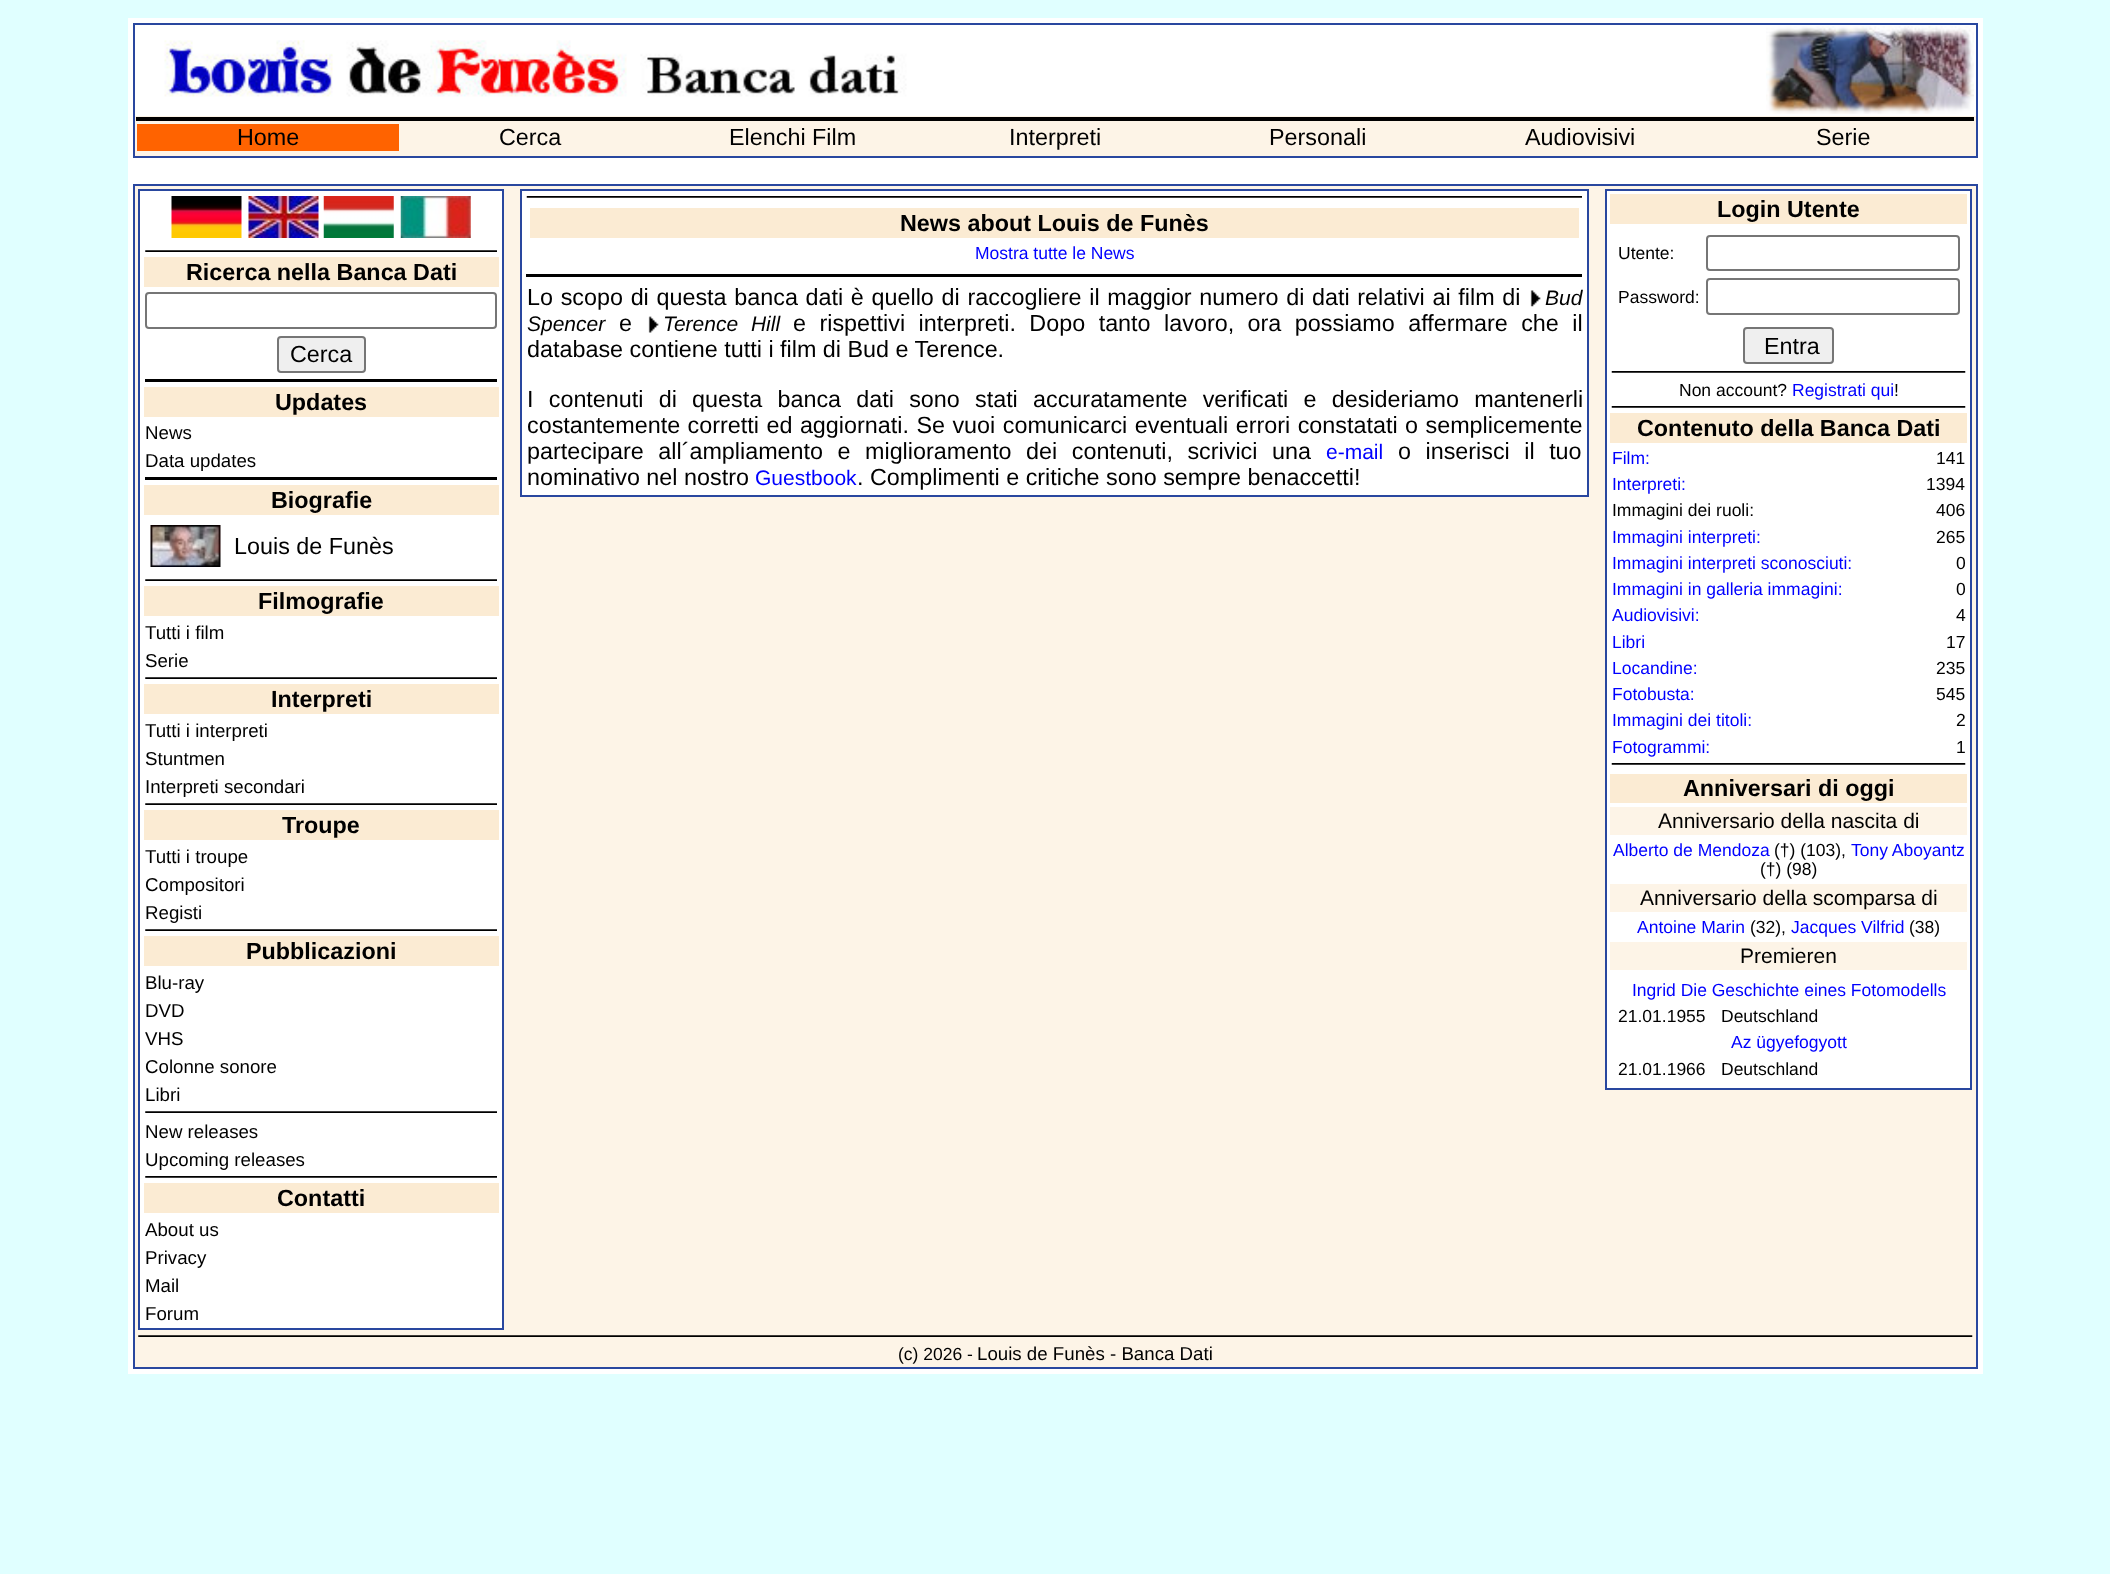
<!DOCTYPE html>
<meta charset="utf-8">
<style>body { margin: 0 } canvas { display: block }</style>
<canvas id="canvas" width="2110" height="1574"></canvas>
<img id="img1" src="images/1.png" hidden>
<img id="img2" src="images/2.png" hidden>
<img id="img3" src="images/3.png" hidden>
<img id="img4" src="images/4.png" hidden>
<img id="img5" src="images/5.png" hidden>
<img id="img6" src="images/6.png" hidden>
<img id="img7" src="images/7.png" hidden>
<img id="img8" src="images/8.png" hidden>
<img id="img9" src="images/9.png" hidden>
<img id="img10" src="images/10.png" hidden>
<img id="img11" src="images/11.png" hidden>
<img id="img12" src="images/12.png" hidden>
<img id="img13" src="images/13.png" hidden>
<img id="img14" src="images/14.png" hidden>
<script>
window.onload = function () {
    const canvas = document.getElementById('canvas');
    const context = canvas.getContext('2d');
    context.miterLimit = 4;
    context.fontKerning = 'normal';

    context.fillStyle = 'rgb(224, 255, 255)';
    context.fillRect(0, 0, 2110, 1574);
    context.fillStyle = 'rgb(255, 255, 255)';
    context.fillRect(128, 18, 1855, 1356);
    context.strokeStyle = 'rgb(41, 71, 159)';
    context.lineWidth = 2;
    context.strokeRect(134, 24, 1843, 133);
    context.drawImage(document.getElementById('img1'), 164, 40, 743, 57);
    context.drawImage(document.getElementById('img2'), 1766, 26, 208, 88);
    context.fillStyle = 'rgb(253, 244, 231)';
    context.fillRect(135, 116, 1841, 40);
    context.fillStyle = 'rgb(0, 0, 0)';
    context.fillRect(136, 117, 1838, 4);
    context.fillStyle = 'rgb(255, 99, 0)';
    context.fillRect(137, 124, 262, 27);
    context.fillStyle = 'rgb(253, 244, 231)';
    context.beginPath();
    context.rect(134, 185, 1843, 1183);
    context.fill();
    context.stroke();
    context.fillStyle = 'rgb(255, 255, 255)';
    context.beginPath();
    context.rect(139, 190, 364, 1139);
    context.fill();
    context.stroke();
    context.drawImage(document.getElementById('img3'), 171, 196, 71, 42);
    context.drawImage(document.getElementById('img4'), 248, 196, 71, 42);
    context.drawImage(document.getElementById('img5'), 323, 196, 71, 42);
    context.drawImage(document.getElementById('img6'), 400, 196, 71, 42);
    context.drawImage(document.getElementById('img7'), 145, 250, 352, 2);
    context.fillStyle = 'rgb(251, 235, 211)';
    context.fillRect(144, 257, 355, 30);
    context.beginPath();
    context.roundRect(146, 293, 350, 35, 3);
    context.strokeStyle = 'rgb(118, 118, 118)';
    context.stroke();
    context.fillStyle = 'rgb(239, 239, 239)';
    context.beginPath();
    context.roundRect(278, 337, 87, 35, 3);
    context.fill();
    context.stroke();
    context.fillStyle = 'rgb(0, 0, 0)';
    context.fillRect(145, 379, 352, 3);
    context.fillStyle = 'rgb(251, 235, 211)';
    context.fillRect(144, 387, 355, 30);
    context.fillStyle = 'rgb(0, 0, 0)';
    context.fillRect(145, 477, 352, 3);
    context.fillStyle = 'rgb(251, 235, 211)';
    context.fillRect(144, 485, 355, 30);
    context.drawImage(document.getElementById('img8'), 150, 525, 71, 42);
    context.drawImage(document.getElementById('img7'), 145, 579, 352, 2);
    context.fillRect(144, 586, 355, 30);
    context.drawImage(document.getElementById('img7'), 145, 677, 352, 2);
    context.fillRect(144, 684, 355, 30);
    context.drawImage(document.getElementById('img7'), 145, 803, 352, 2);
    context.fillRect(144, 810, 355, 30);
    context.drawImage(document.getElementById('img7'), 145, 929, 352, 2);
    context.fillRect(144, 936, 355, 30);
    context.drawImage(document.getElementById('img7'), 145, 1111, 352, 2);
    context.drawImage(document.getElementById('img9'), 145, 1176, 352, 2);
    context.fillRect(144, 1183, 355, 30);
    context.fillStyle = 'rgb(255, 255, 255)';
    context.beginPath();
    context.rect(521, 190, 1067, 306);
    context.fill();
    context.strokeStyle = 'rgb(41, 71, 159)';
    context.stroke();
    context.drawImage(document.getElementById('img10'), 526, 196, 1056, 2);
    context.fillStyle = 'rgb(251, 235, 211)';
    context.fillRect(530, 208, 1049, 30);
    context.fillStyle = 'rgb(0, 0, 0)';
    context.fillRect(526, 274, 1056, 3);
    context.drawImage(document.getElementById('img11'), 1530, 290, 11, 17);
    context.drawImage(document.getElementById('img12'), 648, 316, 11, 17);
    context.fillStyle = 'rgb(255, 255, 255)';
    context.beginPath();
    context.rect(1606, 190, 365, 899);
    context.fill();
    context.stroke();
    context.fillStyle = 'rgb(251, 235, 211)';
    context.fillRect(1610, 194, 357, 30);
    context.beginPath();
    context.roundRect(1707, 236, 252, 34, 3);
    context.strokeStyle = 'rgb(118, 118, 118)';
    context.stroke();
    context.beginPath();
    context.roundRect(1707, 279, 252, 35, 3);
    context.stroke();
    context.fillStyle = 'rgb(239, 239, 239)';
    context.beginPath();
    context.roundRect(1744, 328, 89, 35, 3);
    context.fill();
    context.stroke();
    context.drawImage(document.getElementById('img13'), 1611, 371, 355, 2);
    context.drawImage(document.getElementById('img13'), 1611, 406, 355, 2);
    context.fillStyle = 'rgb(251, 235, 211)';
    context.fillRect(1610, 413, 357, 30);
    context.drawImage(document.getElementById('img13'), 1611, 763, 355, 2);
    context.fillRect(1610, 774, 357, 29);
    context.fillStyle = 'rgb(253, 244, 231)';
    context.fillRect(1610, 807, 357, 28);
    context.fillRect(1610, 884, 357, 28);
    context.fillRect(1610, 942, 357, 28);
    context.drawImage(document.getElementById('img14'), 138, 1335, 1835, 2);
    context.font = '23.35px Liberation Sans';
    context.fillStyle = 'rgb(0, 0, 0)';
    context.fillText('Home', 237, 145);
    context.fillText('Cerca', 499, 145);
    context.fillText('Elenchi Film', 729, 145);
    context.fillText('Interpreti', 1009, 145);
    context.fillText('Personali', 1269, 145);
    context.fillText('Audiovisivi', 1525, 145);
    context.fillText('Serie', 1816, 145);
    context.font = 'bold 23.35px Liberation Sans';
    context.fillText('Ricerca nella Banca Dati', 186, 280);
    context.font = '23.35px Liberation Sans';
    context.fillText('Cerca', 290, 362);
    context.font = 'bold 23.35px Liberation Sans';
    context.fillText('Updates', 275, 410);
    context.font = '18.7px Liberation Sans';
    context.fillText('News', 145, 439);
    context.fillText('Data updates', 145, 467);
    context.font = 'bold 23.35px Liberation Sans';
    context.fillText('Biografie', 271, 508);
    context.font = '23.35px Liberation Sans';
    context.fillText('Louis de Funès', 234, 554);
    context.font = 'bold 23.35px Liberation Sans';
    context.fillText('Filmografie', 258, 609);
    context.font = '18.7px Liberation Sans';
    context.fillText('Tutti i film', 145, 639);
    context.fillText('Serie', 145, 667);
    context.font = 'bold 23.35px Liberation Sans';
    context.fillText('Interpreti', 271, 707);
    context.font = '18.7px Liberation Sans';
    context.fillText('Tutti i interpreti', 145, 737);
    context.fillText('Stuntmen', 145, 765);
    context.fillText('Interpreti secondari', 145, 793);
    context.font = 'bold 23.35px Liberation Sans';
    context.fillText('Troupe', 282, 833);
    context.font = '18.7px Liberation Sans';
    context.fillText('Tutti i troupe', 145, 863);
    context.fillText('Compositori', 145, 891);
    context.fillText('Registi', 145, 919);
    context.font = 'bold 23.35px Liberation Sans';
    context.fillText('Pubblicazioni', 246, 959);
    context.font = '18.7px Liberation Sans';
    context.fillText('Blu-ray', 145, 989);
    context.fillText('DVD', 145, 1017);
    context.fillText('VHS', 145, 1045);
    context.fillText('Colonne sonore', 145, 1073);
    context.fillText('Libri', 145, 1101);
    context.fillText('New releases', 145, 1138);
    context.fillText('Upcoming releases', 145, 1166);
    context.font = 'bold 23.35px Liberation Sans';
    context.fillText('Contatti', 277, 1206);
    context.font = '18.7px Liberation Sans';
    context.fillText('About us', 145, 1236);
    context.fillText('Privacy', 145, 1264);
    context.fillText('Mail', 145, 1292);
    context.fillText('Forum', 145, 1320);
    context.font = 'bold 23.35px Liberation Sans';
    context.fillText('News about Louis de Funès', 900, 231);
    context.font = '17.5px Liberation Sans';
    context.fillStyle = 'rgb(0, 0, 255)';
    context.fillText('Mostra tutte le News', 975, 259);
    context.wordSpacing = '1.2px';
    context.font = '23.35px Liberation Sans';
    context.fillStyle = 'rgb(0, 0, 0)';
    context.fillText('Lo scopo di questa banca dati è quello di raccogliere il maggior numero di dati relativi ai film di', 527, 305);
    context.wordSpacing = '0px';
    context.font = 'italic 21px Liberation Sans';
    context.fillText('Bud', 1545, 305);
    context.fillText('Spencer', 527, 331);
    context.font = '23.35px Liberation Sans';
    context.fillText('e', 619, 331);
    context.wordSpacing = '7px';
    context.font = 'italic 21px Liberation Sans';
    context.fillText('Terence Hill', 663, 331);
    context.font = '23.35px Liberation Sans';
    context.fillText('e rispettivi interpreti. Dopo tanto lavoro, ora possiamo affermare che il', 793, 331);
    context.wordSpacing = '0px';
    context.fillText('database contiene tutti i film di Bud e Terence.', 527, 357);
    context.wordSpacing = '8.75px';
    context.fillText('I contenuti di questa banca dati sono stati accuratamente verificati e desideriamo mantenerli', 527, 407);
    context.wordSpacing = '1px';
    context.fillText('costantemente corretti ed aggiornati. Se vuoi comunicarci eventuali errori constatati o semplicemente', 527, 433);
    context.wordSpacing = '8px';
    context.fillText('partecipare all´ampliamento e miglioramento dei contenuti, scrivici una', 527, 459);
    context.wordSpacing = '0px';
    context.font = '21px Liberation Sans';
    context.fillStyle = 'rgb(0, 0, 255)';
    context.fillText('e-mail', 1326, 459);
    context.wordSpacing = '8px';
    context.font = '23.35px Liberation Sans';
    context.fillStyle = 'rgb(0, 0, 0)';
    context.fillText('o inserisci il tuo', 1398, 459);
    context.wordSpacing = '0px';
    context.fillText('nominativo nel nostro', 527, 485);
    context.font = '21px Liberation Sans';
    context.fillStyle = 'rgb(0, 0, 255)';
    context.fillText('Guestbook', 755, 485);
    context.font = '23.35px Liberation Sans';
    context.fillStyle = 'rgb(0, 0, 0)';
    context.fillText('. Complimenti e critiche sono sempre benaccetti!', 857, 485);
    context.font = 'bold 23.35px Liberation Sans';
    context.fillText('Login Utente', 1717, 217);
    context.font = '17.5px Liberation Sans';
    context.fillText('Utente:', 1618, 259);
    context.fillText('Password:', 1618, 303);
    context.font = '23.35px Liberation Sans';
    context.fillText('Entra', 1764, 354);
    context.font = '17.5px Liberation Sans';
    context.fillText('Non account?', 1679, 396);
    context.fillStyle = 'rgb(0, 0, 255)';
    context.fillText('Registrati qui', 1792, 396);
    context.fillStyle = 'rgb(0, 0, 0)';
    context.fillText('!', 1894, 396);
    context.font = 'bold 23.35px Liberation Sans';
    context.fillText('Contenuto della Banca Dati', 1637, 436);
    context.font = '17.5px Liberation Sans';
    context.fillStyle = 'rgb(0, 0, 255)';
    context.fillText('Film:', 1612, 464);
    context.fillStyle = 'rgb(0, 0, 0)';
    context.fillText('141', 1936, 464);
    context.fillStyle = 'rgb(0, 0, 255)';
    context.fillText('Interpreti:', 1612, 490);
    context.fillStyle = 'rgb(0, 0, 0)';
    context.fillText('1394', 1926, 490);
    context.fillText('Immagini dei ruoli:', 1612, 516);
    context.fillText('406', 1936, 516);
    context.fillStyle = 'rgb(0, 0, 255)';
    context.fillText('Immagini interpreti:', 1612, 543);
    context.fillStyle = 'rgb(0, 0, 0)';
    context.fillText('265', 1936, 543);
    context.fillStyle = 'rgb(0, 0, 255)';
    context.fillText('Immagini interpreti sconosciuti:', 1612, 569);
    context.fillStyle = 'rgb(0, 0, 0)';
    context.fillText('0', 1956, 569);
    context.fillStyle = 'rgb(0, 0, 255)';
    context.fillText('Immagini in galleria immagini:', 1612, 595);
    context.fillStyle = 'rgb(0, 0, 0)';
    context.fillText('0', 1956, 595);
    context.fillStyle = 'rgb(0, 0, 255)';
    context.fillText('Audiovisivi:', 1612, 621);
    context.fillStyle = 'rgb(0, 0, 0)';
    context.fillText('4', 1956, 621);
    context.fillStyle = 'rgb(0, 0, 255)';
    context.fillText('Libri', 1612, 648);
    context.fillStyle = 'rgb(0, 0, 0)';
    context.fillText('17', 1946, 648);
    context.fillStyle = 'rgb(0, 0, 255)';
    context.fillText('Locandine:', 1612, 674);
    context.fillStyle = 'rgb(0, 0, 0)';
    context.fillText('235', 1936, 674);
    context.fillStyle = 'rgb(0, 0, 255)';
    context.fillText('Fotobusta:', 1612, 700);
    context.fillStyle = 'rgb(0, 0, 0)';
    context.fillText('545', 1936, 700);
    context.fillStyle = 'rgb(0, 0, 255)';
    context.fillText('Immagini dei titoli:', 1612, 726);
    context.fillStyle = 'rgb(0, 0, 0)';
    context.fillText('2', 1956, 726);
    context.fillStyle = 'rgb(0, 0, 255)';
    context.fillText('Fotogrammi:', 1612, 753);
    context.fillStyle = 'rgb(0, 0, 0)';
    context.fillText('1', 1956, 753);
    context.font = 'bold 23.35px Liberation Sans';
    context.fillText('Anniversari di oggi', 1683, 796);
    context.font = '21px Liberation Sans';
    context.fillText('Anniversario della nascita di', 1658, 828);
    context.font = '17.5px Liberation Sans';
    context.fillStyle = 'rgb(0, 0, 255)';
    context.fillText('Alberto de Mendoza', 1613, 856);
    context.fillStyle = 'rgb(0, 0, 0)';
    context.fillText('(†) (103),', 1774, 856);
    context.fillStyle = 'rgb(0, 0, 255)';
    context.fillText('Tony Aboyantz', 1851, 856);
    context.fillStyle = 'rgb(0, 0, 0)';
    context.fillText('(†) (98)', 1760, 875);
    context.font = '21px Liberation Sans';
    context.fillText('Anniversario della scomparsa di', 1640, 905);
    context.font = '17.5px Liberation Sans';
    context.fillStyle = 'rgb(0, 0, 255)';
    context.fillText('Antoine Marin', 1637, 933);
    context.fillStyle = 'rgb(0, 0, 0)';
    context.fillText('(32),', 1750, 933);
    context.fillStyle = 'rgb(0, 0, 255)';
    context.fillText('Jacques Vilfrid', 1791, 933);
    context.fillStyle = 'rgb(0, 0, 0)';
    context.fillText('(38)', 1909, 933);
    context.font = '21px Liberation Sans';
    context.fillText('Premieren', 1740, 963);
    context.font = '17.5px Liberation Sans';
    context.fillStyle = 'rgb(0, 0, 255)';
    context.fillText('Ingrid Die Geschichte eines Fotomodells', 1632, 996);
    context.fillStyle = 'rgb(0, 0, 0)';
    context.fillText('21.01.1955', 1618, 1022);
    context.fillText('Deutschland', 1721, 1022);
    context.fillStyle = 'rgb(0, 0, 255)';
    context.fillText('Az ügyefogyott', 1731, 1048);
    context.fillStyle = 'rgb(0, 0, 0)';
    context.fillText('21.01.1966', 1618, 1075);
    context.fillText('Deutschland', 1721, 1075);
    context.fillText('(c) 2026 -', 898, 1360);
    context.font = '18.7px Liberation Sans';
    context.fillText('Louis de Funès - Banca Dati', 977, 1360);
};
</script>
